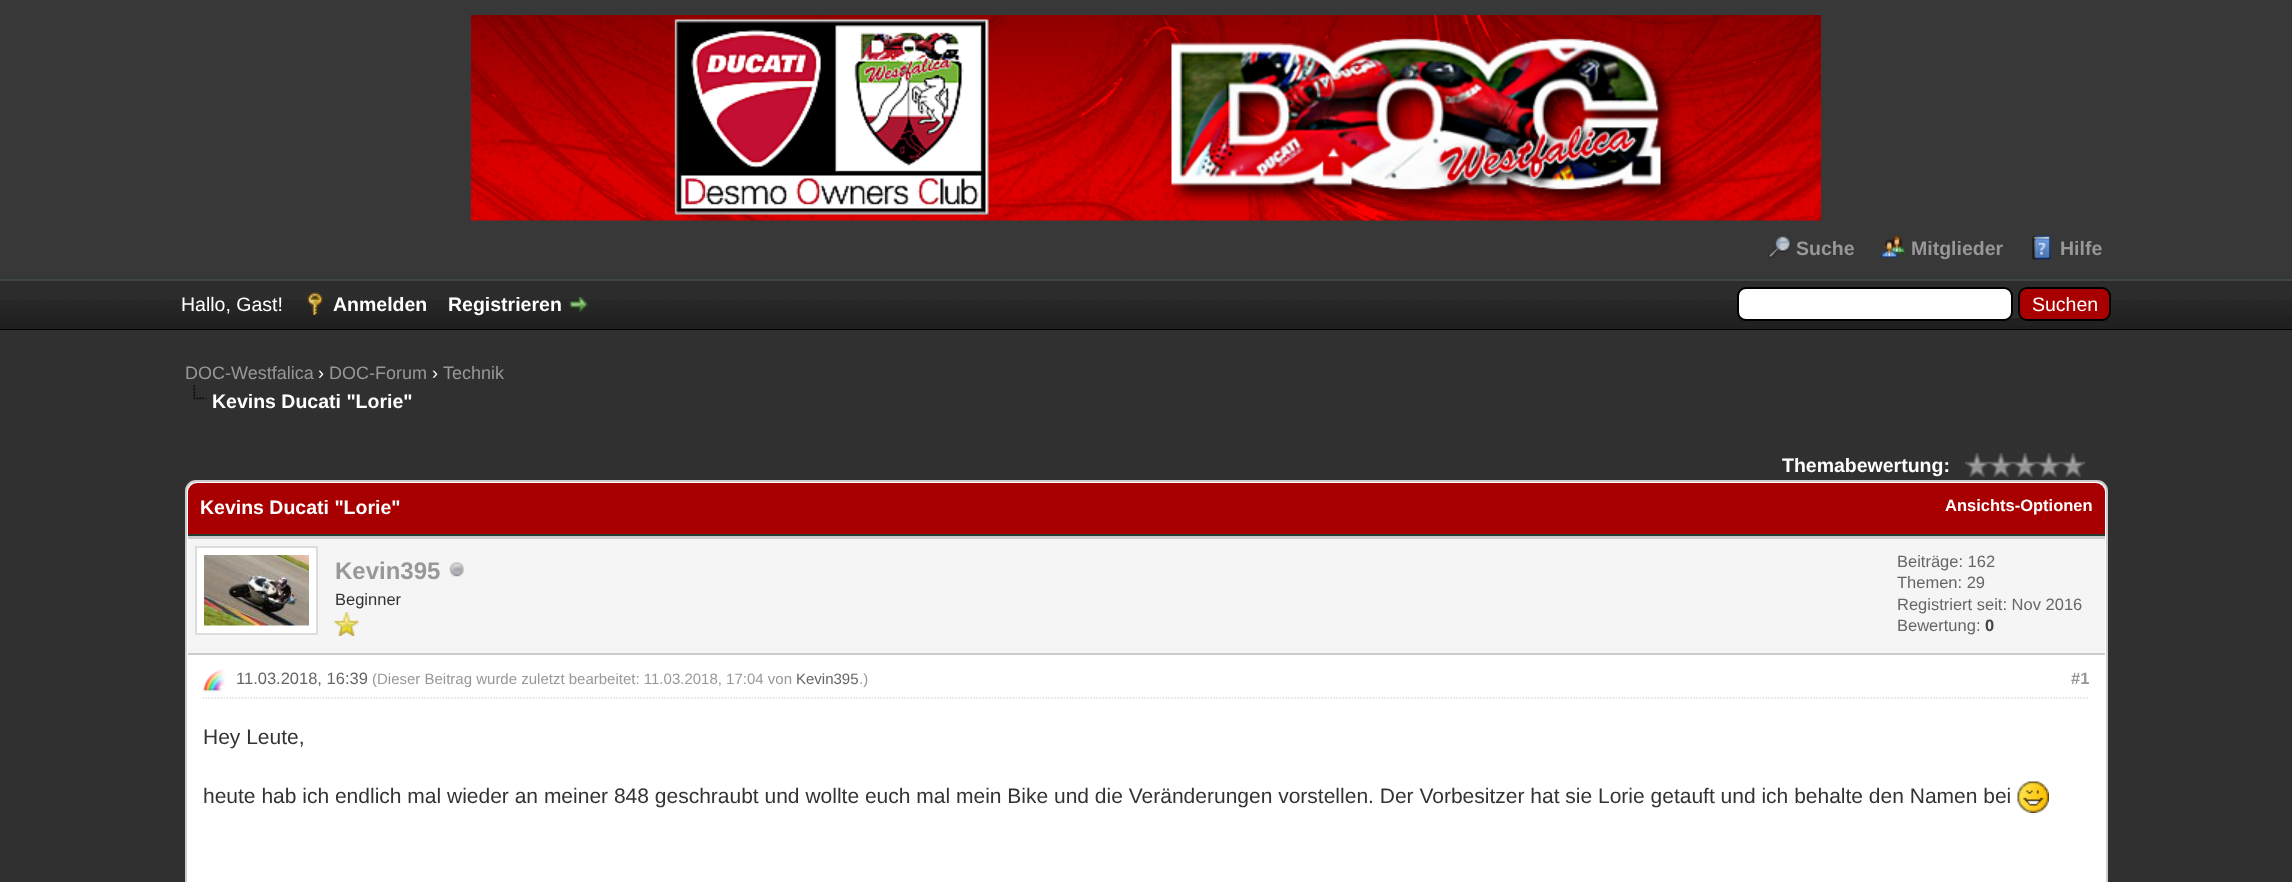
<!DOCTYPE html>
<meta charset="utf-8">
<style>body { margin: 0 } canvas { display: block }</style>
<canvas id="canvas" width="2292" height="882"></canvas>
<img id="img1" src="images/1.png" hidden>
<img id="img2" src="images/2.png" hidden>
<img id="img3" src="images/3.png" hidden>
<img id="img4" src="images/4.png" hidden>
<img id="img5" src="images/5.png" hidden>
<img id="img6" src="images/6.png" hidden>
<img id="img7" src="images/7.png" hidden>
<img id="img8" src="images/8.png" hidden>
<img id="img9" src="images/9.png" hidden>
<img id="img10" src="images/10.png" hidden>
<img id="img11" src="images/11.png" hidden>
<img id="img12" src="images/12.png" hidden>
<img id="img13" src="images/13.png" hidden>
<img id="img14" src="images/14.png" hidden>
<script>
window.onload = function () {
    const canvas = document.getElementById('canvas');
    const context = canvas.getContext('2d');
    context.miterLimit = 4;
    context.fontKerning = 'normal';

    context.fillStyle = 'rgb(56, 56, 56)';
    context.fillRect(0, 0, 2292, 882);
    context.fillStyle = 'rgb(38, 60, 48)';
    context.fillRect(0, 278, 2292, 1);
    context.drawImage(document.getElementById('img1'), 471, 15, 1350, 206);
    context.drawImage(document.getElementById('img2'), 1768, 236, 23, 22);
    context.drawImage(document.getElementById('img3'), 1881, 235, 24, 23);
    context.drawImage(document.getElementById('img4'), 2032, 235, 19, 25);
    context.drawImage(document.getElementById('img5'), 0, 281, 2292, 48);
    context.fillStyle = 'rgb(68, 68, 68)';
    context.fillRect(0, 279, 2292, 2);
    context.fillStyle = 'rgb(0, 0, 0)';
    context.fillRect(0, 329, 2292, 1);
    context.drawImage(document.getElementById('img6'), 307, 292, 16, 23);
    context.drawImage(document.getElementById('img7'), 569, 296, 20, 17);
    context.fillStyle = 'rgb(44, 44, 44)';
    context.beginPath();
    context.roundRect(1737, 291, 374, 27, 9);
    context.fill();
    context.fillStyle = 'rgb(255, 255, 255)';
    context.beginPath();
    context.roundRect(1738, 288, 274, 32, 8);
    context.fill();
    context.strokeStyle = 'rgb(0, 0, 0)';
    context.lineWidth = 2;
    context.stroke();
    context.fillStyle = 'rgb(168, 0, 0)';
    context.beginPath();
    context.roundRect(2019, 288, 91, 32, 8);
    context.fill();
    context.stroke();
    context.fillStyle = 'rgb(48, 48, 48)';
    context.fillRect(0, 330, 2292, 552);
    context.drawImage(document.getElementById('img8'), 193, 385, 14, 15);
    context.drawImage(document.getElementById('img9'), 1965, 453, 120, 24);
    context.fillStyle = 'rgb(255, 255, 255)';
    context.beginPath();
    context.roundRect(186, 481, 1921, 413, 10);
    context.fill();
    context.strokeStyle = 'rgb(204, 204, 204)';
    context.stroke();
    context.fillStyle = 'rgb(168, 0, 0)';
    context.beginPath();
    context.roundRect(188, 483, 1917, 53, [9, 9, 0, 0]);
    context.fill();
    context.fillStyle = 'rgb(38, 60, 48)';
    context.fillRect(188, 534, 1917, 2);
    context.fillStyle = 'rgb(245, 245, 245)';
    context.fillRect(188, 539, 1917, 114);
    context.fillStyle = 'rgb(204, 204, 204)';
    context.fillRect(188, 536, 1917, 3);
    context.fillRect(188, 653, 1917, 2);
    context.fillStyle = 'rgb(255, 255, 255)';
    context.beginPath();
    context.rect(196, 547, 121, 87);
    context.fill();
    context.strokeStyle = 'rgb(221, 221, 221)';
    context.stroke();
    context.drawImage(document.getElementById('img10'), 204, 555, 105, 71);
    context.drawImage(document.getElementById('img11'), 449, 562, 15, 15);
    context.drawImage(document.getElementById('img12'), 334, 612, 25, 24);
    context.beginPath();
    context.moveTo(202.5, 698);
    context.lineTo(2089.5, 698);
    context.lineWidth = 1.5;
    context.setLineDash([1.5, 1.5]);
    context.stroke();
    context.drawImage(document.getElementById('img13'), 202, 669, 23, 23);
    context.drawImage(document.getElementById('img14'), 2017, 781, 32, 32);
    context.font = 'bold 19.5px Liberation Sans';
    context.fillStyle = 'rgb(152, 152, 152)';
    context.fillText('Suche', 1796, 255);
    context.fillText('Mitglieder', 1911, 255);
    context.fillText('Hilfe', 2060, 255);
    context.font = '19.5px Liberation Sans';
    context.fillStyle = 'rgb(255, 255, 255)';
    context.fillText('Hallo, Gast!', 181, 311);
    context.font = 'bold 19.5px Liberation Sans';
    context.fillText('Anmelden', 333, 311);
    context.fillText('Registrieren', 448, 311);
    context.font = '19.5px Liberation Sans';
    context.fillText('Suchen', 2032, 311);
    context.font = '18px Liberation Sans';
    context.fillStyle = 'rgb(152, 152, 152)';
    context.fillText('DOC-Westfalica', 185, 379);
    context.fillStyle = 'rgb(255, 255, 255)';
    context.fillText('›', 318, 379);
    context.fillStyle = 'rgb(152, 152, 152)';
    context.fillText('DOC-Forum', 329, 379);
    context.fillStyle = 'rgb(255, 255, 255)';
    context.fillText('›', 432, 379);
    context.fillStyle = 'rgb(152, 152, 152)';
    context.fillText('Technik', 443, 379);
    context.font = 'bold 19.5px Liberation Sans';
    context.fillStyle = 'rgb(255, 255, 255)';
    context.fillText('Kevins Ducati "Lorie"', 212, 408);
    context.fillText('Themabewertung:', 1782, 472);
    context.fillText('Kevins Ducati "Lorie"', 200, 514);
    context.font = 'bold 16.5px Liberation Sans';
    context.fillText('Ansichts-Optionen', 1945, 511);
    context.font = 'bold 24px Liberation Sans';
    context.fillStyle = 'rgb(152, 152, 152)';
    context.fillText('Kevin395', 335, 579);
    context.font = '16.5px Liberation Sans';
    context.fillStyle = 'rgb(51, 51, 51)';
    context.fillText('Beginner', 335, 605);
    context.fillStyle = 'rgb(102, 102, 102)';
    context.fillText('Beiträge: 162', 1897, 567);
    context.fillText('Themen: 29', 1897, 588);
    context.fillText('Registriert seit: Nov 2016', 1897, 610);
    context.fillText('Bewertung:', 1897, 631);
    context.font = 'bold 16.5px Liberation Sans';
    context.fillStyle = 'rgb(68, 68, 68)';
    context.fillText('0', 1985, 631);
    context.font = '16.5px Liberation Sans';
    context.fillStyle = 'rgb(102, 102, 102)';
    context.fillText('11.03.2018, 16:39', 236, 684);
    context.font = '15px Liberation Sans';
    context.fillStyle = 'rgb(152, 152, 152)';
    context.fillText('(Dieser Beitrag wurde zuletzt bearbeitet: 11.03.2018, 17:04 von', 372, 684);
    context.fillStyle = 'rgb(102, 102, 102)';
    context.fillText('Kevin395', 796, 684);
    context.fillStyle = 'rgb(152, 152, 152)';
    context.fillText('.)', 859, 684);
    context.font = 'bold 16.5px Liberation Sans';
    context.fillText('#1', 2071, 684);
    context.font = '21px Liberation Sans';
    context.fillStyle = 'rgb(51, 51, 51)';
    context.fillText('Hey Leute,', 203, 744);
    context.fillText('heute hab ich endlich mal wieder an meiner 848 geschraubt und wollte euch mal mein Bike und die Veränderungen vorstellen. Der Vorbesitzer hat sie Lorie getauft und ich behalte den Namen bei', 203, 803);
};
</script>
